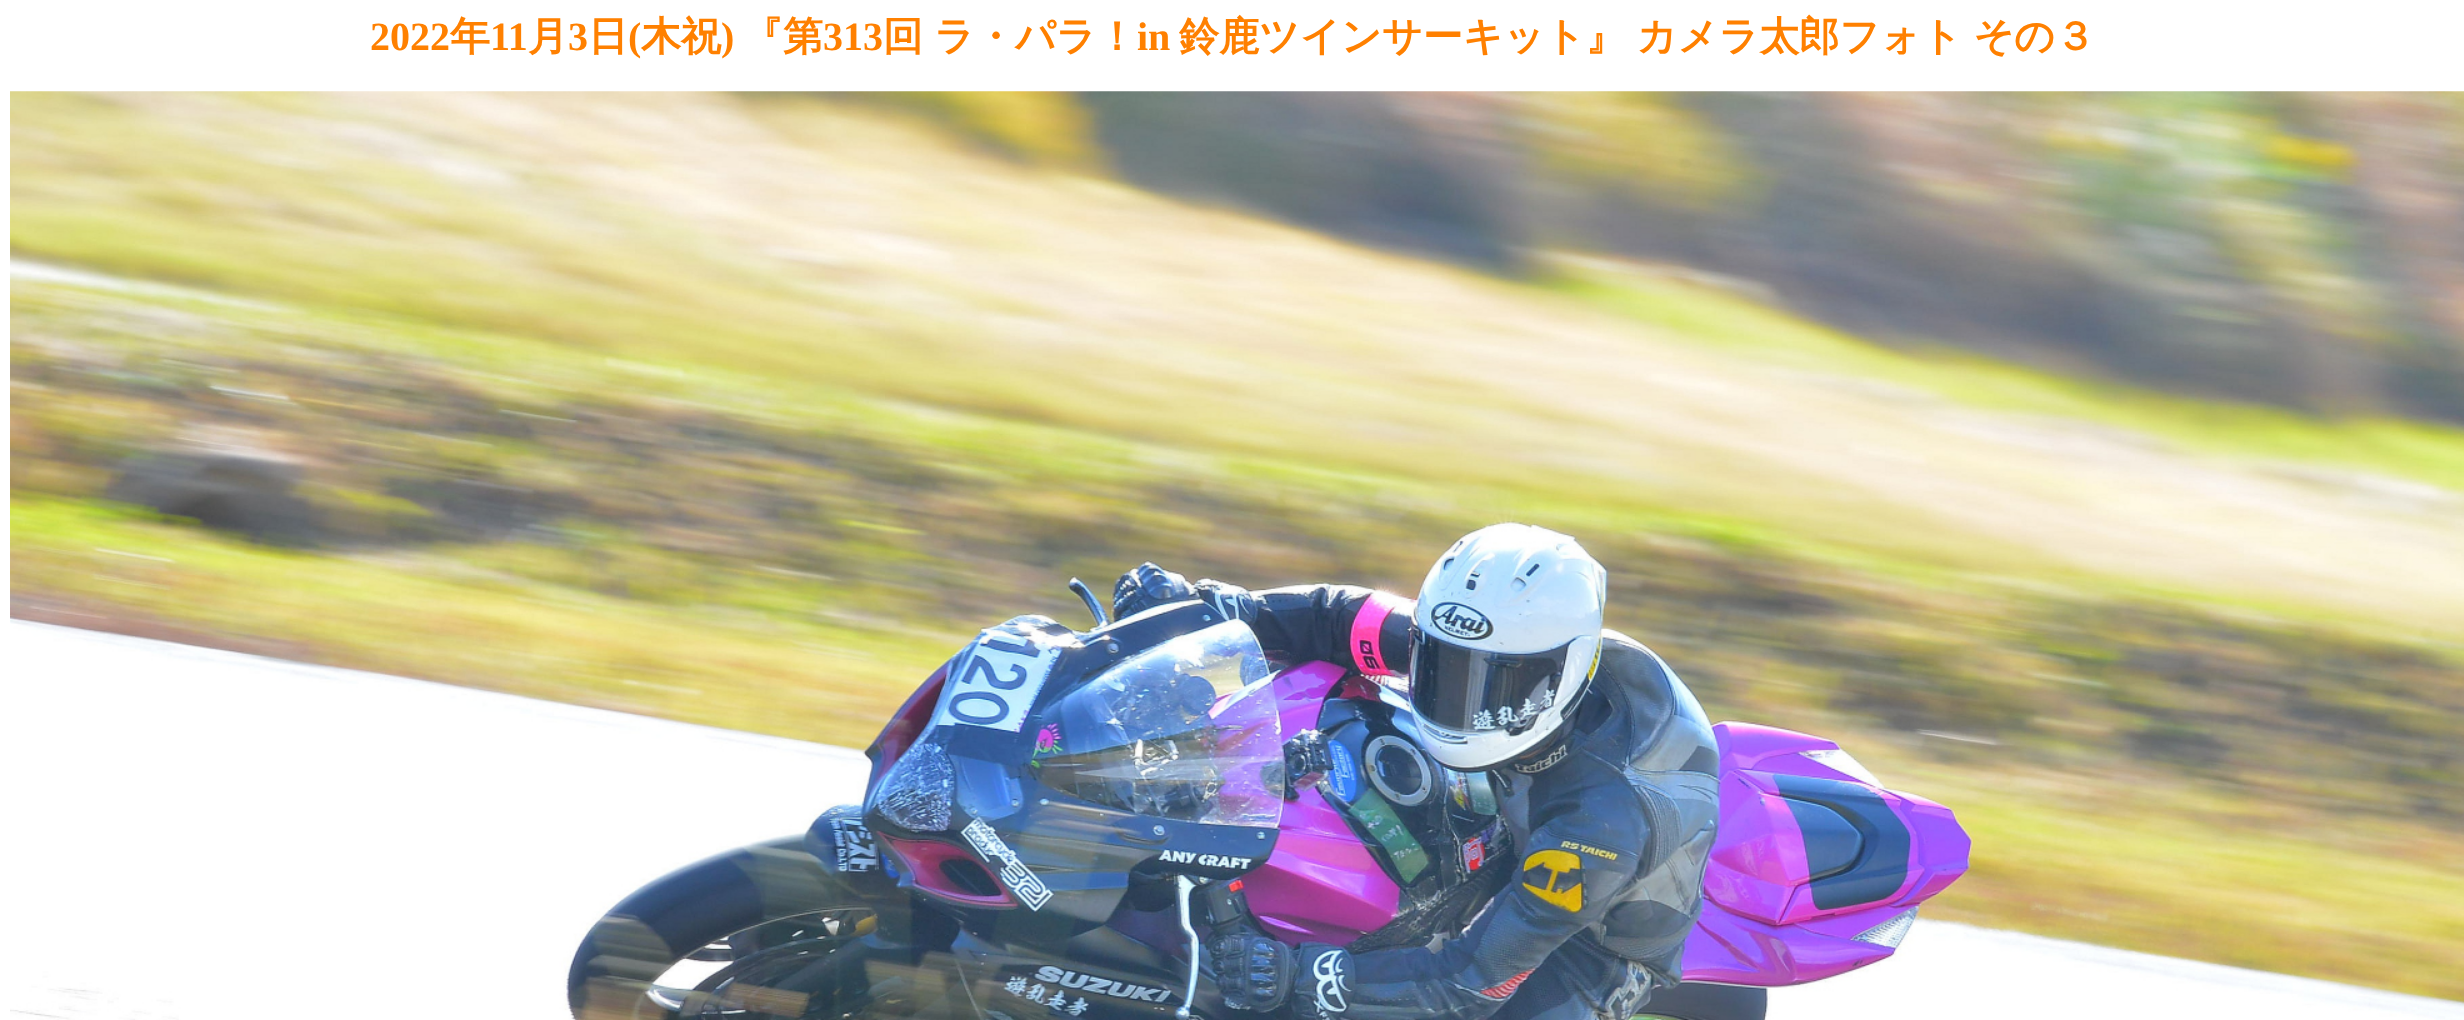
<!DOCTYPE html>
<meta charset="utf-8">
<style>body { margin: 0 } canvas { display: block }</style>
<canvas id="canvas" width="2464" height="1020"></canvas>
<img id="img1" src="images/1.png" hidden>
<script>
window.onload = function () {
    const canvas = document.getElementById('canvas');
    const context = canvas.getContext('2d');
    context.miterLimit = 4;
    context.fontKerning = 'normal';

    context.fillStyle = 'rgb(255, 255, 255)';
    context.fillRect(0, 0, 2464, 1020);
    context.drawImage(document.getElementById('img1'), 10, 91, 2454, 929);
    context.font = 'bold 40px Liberation Serif';
    context.fillStyle = 'rgb(255, 128, 0)';
    context.fillText('2022', 370, 50);
    context.font = 'bold 40px WenQuanYi Zen Hei';
    context.fillText('年', 450, 50);
    context.font = 'bold 40px Liberation Serif';
    context.fillText('11', 490, 50);
    context.font = 'bold 40px WenQuanYi Zen Hei';
    context.fillText('月', 528, 50);
    context.font = 'bold 40px Liberation Serif';
    context.fillText('3', 568, 50);
    context.font = 'bold 40px WenQuanYi Zen Hei';
    context.fillText('日', 588, 50);
    context.font = 'bold 40px Liberation Serif';
    context.fillText('(', 628, 50);
    context.font = 'bold 40px WenQuanYi Zen Hei';
    context.fillText('木祝', 641, 50);
    context.font = 'bold 40px Liberation Serif';
    context.fillText(')', 721, 50);
    context.font = 'bold 40px WenQuanYi Zen Hei';
    context.fillText('『第', 743, 50);
    context.font = 'bold 40px Liberation Serif';
    context.fillText('313', 823, 50);
    context.wordSpacing = '-1px';
    context.font = 'bold 40px WenQuanYi Zen Hei';
    context.fillText('回 ラ・パラ！', 883, 50);
    context.wordSpacing = '0px';
    context.font = 'bold 40px Liberation Serif';
    context.fillText('in', 1137, 50);
    context.wordSpacing = '-1px';
    context.font = 'bold 40px WenQuanYi Zen Hei';
    context.fillText('鈴鹿ツインサーキット』 カメラ太郎フォト その３', 1179, 50);
};
</script>
